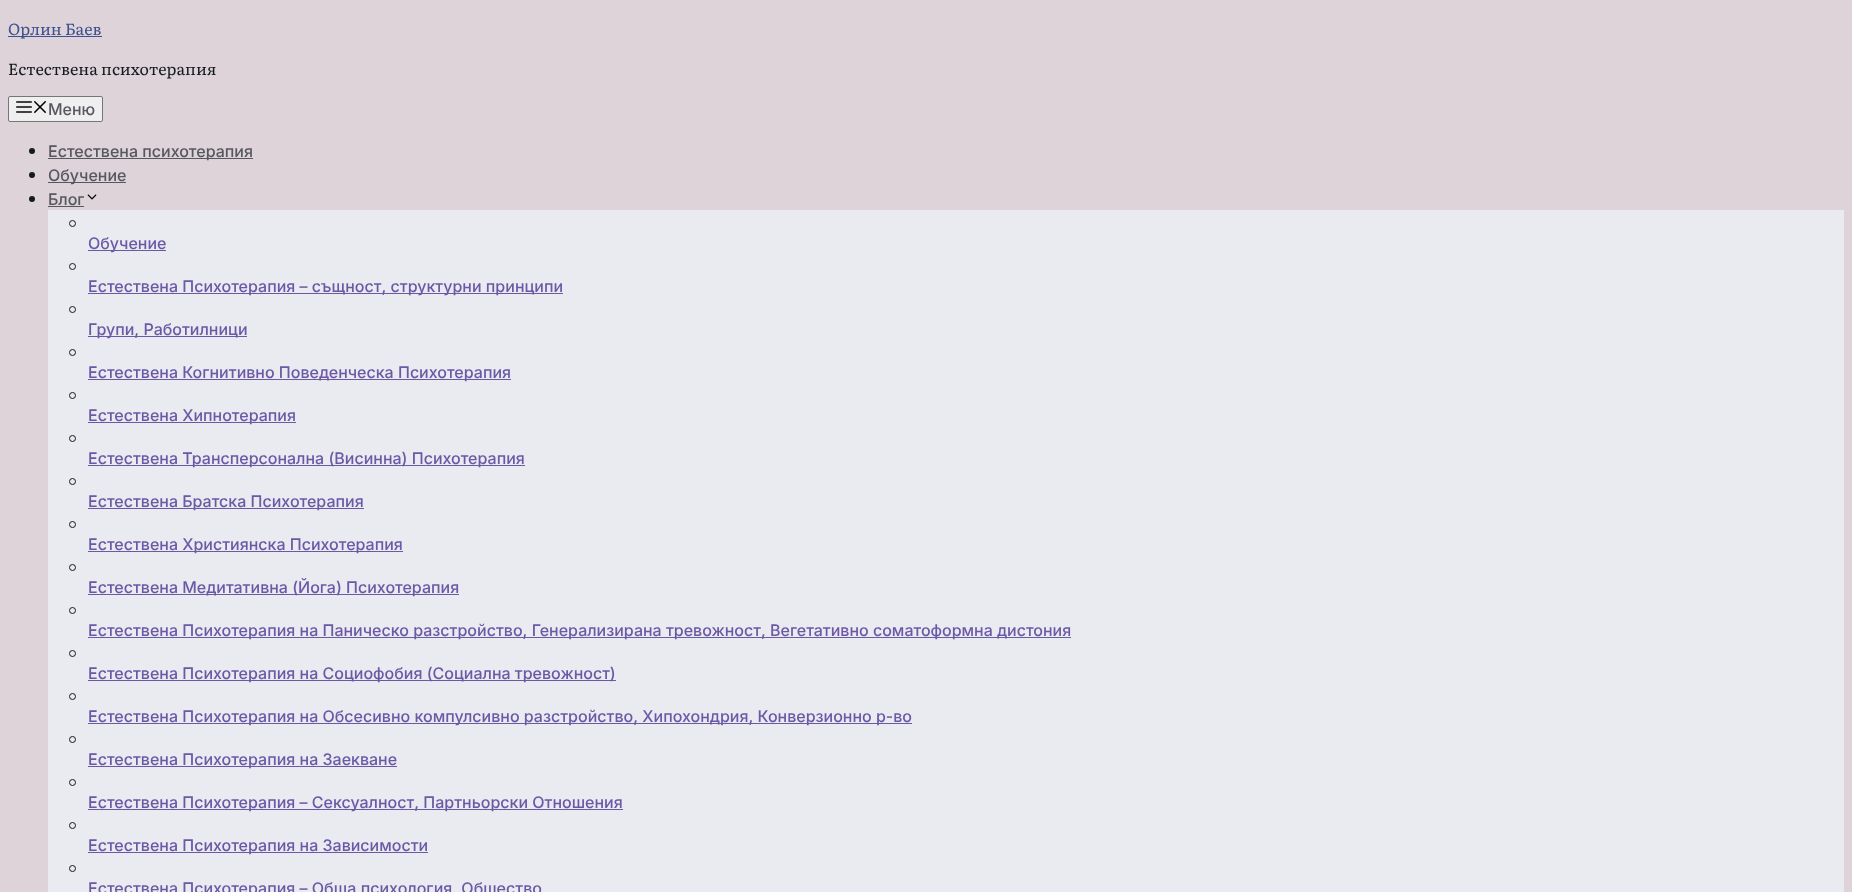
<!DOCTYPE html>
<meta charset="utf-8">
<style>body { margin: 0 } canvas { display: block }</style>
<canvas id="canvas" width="1852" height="892"></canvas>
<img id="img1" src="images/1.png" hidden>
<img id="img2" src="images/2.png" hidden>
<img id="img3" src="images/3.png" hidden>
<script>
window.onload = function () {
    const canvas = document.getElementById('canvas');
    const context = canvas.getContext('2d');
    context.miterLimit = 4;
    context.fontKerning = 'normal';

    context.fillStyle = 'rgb(221, 211, 217)';
    context.fillRect(0, 0, 1852, 892);
    context.fillStyle = 'rgb(61, 80, 143)';
    context.fillRect(8, 36, 94, 1);
    context.fillStyle = 'rgb(239, 239, 239)';
    context.beginPath();
    context.roundRect(8.5, 96.5, 94, 25, 1.5);
    context.fill();
    context.strokeStyle = 'rgb(118, 118, 118)';
    context.stroke();
    context.drawImage(document.getElementById('img1'), 16, 101, 16, 12);
    context.drawImage(document.getElementById('img2'), 34, 101, 12, 12);
    context.fillStyle = 'rgb(21, 26, 30)';
    context.beginPath();
    context.arc(32, 151, 3, 0, 2 * Math.PI);
    context.fill();
    context.fillStyle = 'rgb(87, 87, 96)';
    context.fillRect(48, 158, 205, 1);
    context.fillStyle = 'rgb(21, 26, 30)';
    context.beginPath();
    context.arc(32, 175, 3, 0, 2 * Math.PI);
    context.fill();
    context.fillStyle = 'rgb(87, 87, 96)';
    context.fillRect(48, 182, 78, 1);
    context.fillStyle = 'rgb(21, 26, 30)';
    context.beginPath();
    context.arc(32, 199, 3, 0, 2 * Math.PI);
    context.fill();
    context.fillStyle = 'rgb(87, 87, 96)';
    context.fillRect(48, 206, 36, 1);
    context.drawImage(document.getElementById('img3'), 87, 194, 10, 6);
    context.fillStyle = 'rgb(234, 234, 241)';
    context.fillRect(48, 210, 1796, 682);
    context.beginPath();
    context.arc(72.5, 223.5, 3, 0, 2 * Math.PI);
    context.strokeStyle = 'rgb(21, 26, 30)';
    context.stroke();
    context.fillStyle = 'rgb(107, 89, 166)';
    context.fillRect(88, 250, 78, 1);
    context.beginPath();
    context.arc(72.5, 266.5, 3, 0, 2 * Math.PI);
    context.stroke();
    context.fillRect(88, 293, 475, 1);
    context.beginPath();
    context.arc(72.5, 309.5, 3, 0, 2 * Math.PI);
    context.stroke();
    context.fillRect(88, 336, 159, 1);
    context.beginPath();
    context.arc(72.5, 352.5, 3, 0, 2 * Math.PI);
    context.stroke();
    context.fillRect(88, 379, 423, 1);
    context.beginPath();
    context.arc(72.5, 395.5, 3, 0, 2 * Math.PI);
    context.stroke();
    context.fillRect(88, 422, 208, 1);
    context.beginPath();
    context.arc(72.5, 438.5, 3, 0, 2 * Math.PI);
    context.stroke();
    context.fillRect(88, 465, 437, 1);
    context.beginPath();
    context.arc(72.5, 481.5, 3, 0, 2 * Math.PI);
    context.stroke();
    context.fillRect(88, 508, 276, 1);
    context.beginPath();
    context.arc(72.5, 524.5, 3, 0, 2 * Math.PI);
    context.stroke();
    context.fillRect(88, 551, 315, 1);
    context.beginPath();
    context.arc(72.5, 567.5, 3, 0, 2 * Math.PI);
    context.stroke();
    context.fillRect(88, 594, 371, 1);
    context.beginPath();
    context.arc(72.5, 610.5, 3, 0, 2 * Math.PI);
    context.stroke();
    context.fillRect(88, 637, 983, 1);
    context.beginPath();
    context.arc(72.5, 653.5, 3, 0, 2 * Math.PI);
    context.stroke();
    context.fillRect(88, 680, 528, 1);
    context.beginPath();
    context.arc(72.5, 696.5, 3, 0, 2 * Math.PI);
    context.stroke();
    context.fillRect(88, 723, 824, 1);
    context.beginPath();
    context.arc(72.5, 739.5, 3, 0, 2 * Math.PI);
    context.stroke();
    context.fillRect(88, 766, 309, 1);
    context.beginPath();
    context.arc(72.5, 782.5, 3, 0, 2 * Math.PI);
    context.stroke();
    context.fillRect(88, 809, 535, 1);
    context.beginPath();
    context.arc(72.5, 825.5, 3, 0, 2 * Math.PI);
    context.stroke();
    context.fillRect(88, 852, 340, 1);
    context.beginPath();
    context.arc(72.5, 868.5, 3, 0, 2 * Math.PI);
    context.stroke();
    context.font = '16px Literata';
    context.fillStyle = 'rgb(61, 80, 143)';
    context.fillText('Орлин Баев', 8, 35);
    context.fillStyle = 'rgb(21, 26, 30)';
    context.fillText('Естествена психотерапия', 8, 75);
    context.font = '500 16px Inter';
    context.fillStyle = 'rgb(87, 87, 96)';
    context.fillText('Меню', 48, 115);
    context.fillText('Естествена психотерапия', 48, 157);
    context.fillText('Обучение', 48, 181);
    context.fillText('Блог', 48, 205);
    context.fillStyle = 'rgb(107, 89, 166)';
    context.fillText('Обучение', 88, 249);
    context.fillText('Естествена Психотерапия – същност, структурни принципи', 88, 292);
    context.fillText('Групи, Работилници', 88, 335);
    context.fillText('Естествена Когнитивно Поведенческа Психотерапия', 88, 378);
    context.fillText('Естествена Хипнотерапия', 88, 421);
    context.fillText('Естествена Трансперсонална (Висинна) Психотерапия', 88, 464);
    context.fillText('Естествена Братска Психотерапия', 88, 507);
    context.fillText('Естествена Християнска Психотерапия', 88, 550);
    context.fillText('Естествена Медитативна (Йога) Психотерапия', 88, 593);
    context.fillText('Естествена Психотерапия на Паническо разстройство, Генерализирана тревожност, Вегетативно соматоформна дистония', 88, 636);
    context.fillText('Естествена Психотерапия на Социофобия (Социална тревожност)', 88, 679);
    context.fillText('Естествена Психотерапия на Обсесивно компулсивно разстройство, Хипохондрия, Конверзионно р-во', 88, 722);
    context.fillText('Естествена Психотерапия на Заекване', 88, 765);
    context.fillText('Естествена Психотерапия – Сексуалност, Партньорски Отношения', 88, 808);
    context.fillText('Естествена Психотерапия на Зависимости', 88, 851);
    context.fillText('Естествена Психотерапия – Обща психология, Общество', 88, 894);
};
</script>
